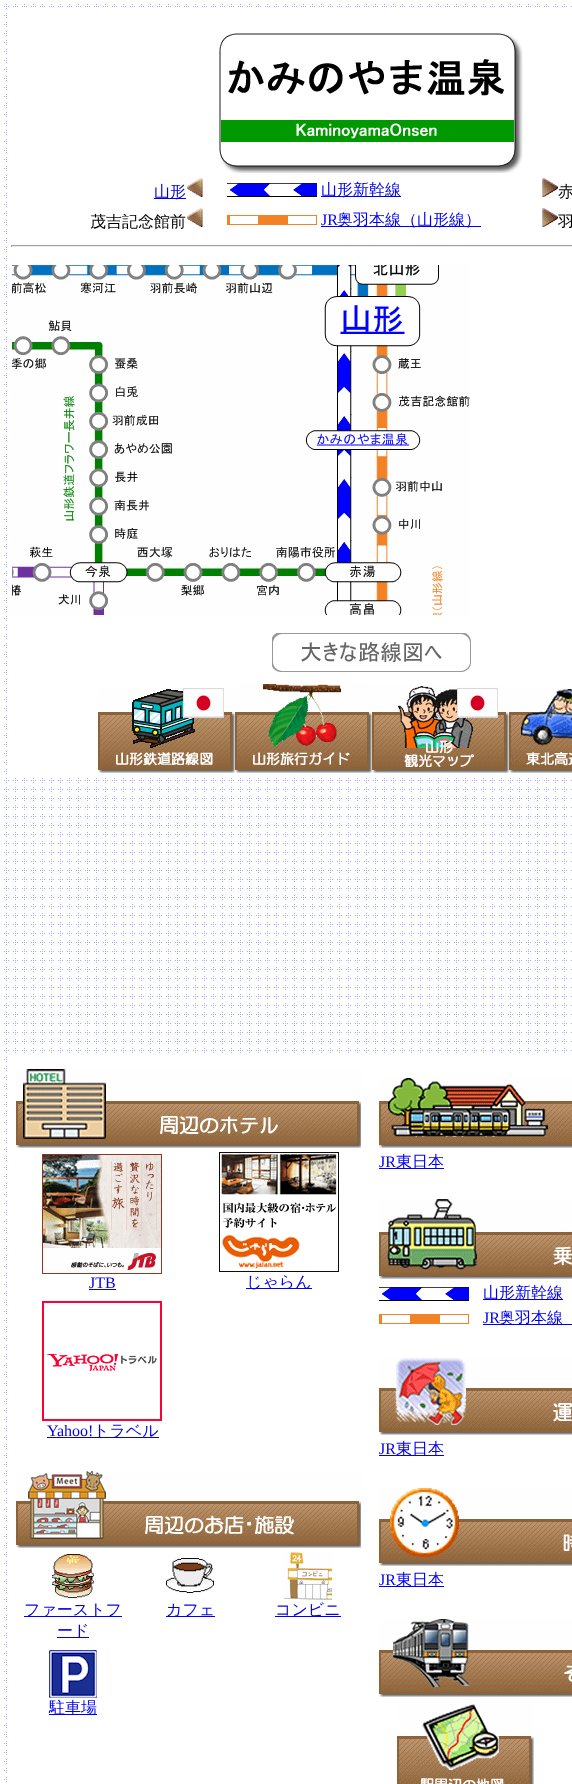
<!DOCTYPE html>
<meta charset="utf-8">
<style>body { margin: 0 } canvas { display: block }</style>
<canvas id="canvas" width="572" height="1784"></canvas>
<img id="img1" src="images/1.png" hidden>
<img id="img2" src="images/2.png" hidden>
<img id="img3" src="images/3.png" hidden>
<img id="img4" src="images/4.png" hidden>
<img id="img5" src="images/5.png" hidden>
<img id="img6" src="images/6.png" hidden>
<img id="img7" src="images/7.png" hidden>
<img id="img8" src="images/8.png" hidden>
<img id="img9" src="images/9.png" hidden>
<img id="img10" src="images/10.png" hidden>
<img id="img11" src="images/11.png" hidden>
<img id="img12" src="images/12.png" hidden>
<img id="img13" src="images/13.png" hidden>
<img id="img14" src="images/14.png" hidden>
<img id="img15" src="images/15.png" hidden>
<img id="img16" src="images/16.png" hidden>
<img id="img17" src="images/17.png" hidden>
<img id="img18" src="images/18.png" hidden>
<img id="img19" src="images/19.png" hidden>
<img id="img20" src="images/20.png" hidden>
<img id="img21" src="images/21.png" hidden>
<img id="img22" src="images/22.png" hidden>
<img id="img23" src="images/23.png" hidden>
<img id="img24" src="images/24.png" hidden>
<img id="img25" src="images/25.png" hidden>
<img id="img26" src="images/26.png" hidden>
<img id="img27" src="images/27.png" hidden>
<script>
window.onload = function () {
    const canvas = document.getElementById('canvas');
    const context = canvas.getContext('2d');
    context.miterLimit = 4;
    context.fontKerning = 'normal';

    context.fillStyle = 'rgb(255, 255, 255)';
    context.fillRect(0, 0, 572, 1784);
    context.drawImage(document.getElementById('img1'), 4, 4, 568, 1778);
    context.fillRect(8, 8, 564, 249);
    context.drawImage(document.getElementById('img2'), 219, 33, 304, 140);
    context.fillStyle = 'rgb(0, 0, 238)';
    context.fillRect(154, 198, 32, 1);
    context.drawImage(document.getElementById('img3'), 187, 178, 16, 19);
    context.drawImage(document.getElementById('img4'), 227, 183, 90, 14);
    context.fillRect(321, 196, 80, 1);
    context.drawImage(document.getElementById('img5'), 542, 178, 16, 19);
    context.drawImage(document.getElementById('img3'), 187, 208, 16, 19);
    context.drawImage(document.getElementById('img6'), 227, 215, 90, 10);
    context.fillRect(321, 226, 160, 1);
    context.drawImage(document.getElementById('img5'), 542, 208, 16, 19);
    context.fillStyle = 'rgb(159, 159, 159)';
    context.fillRect(11, 245, 561, 1);
    context.fillStyle = 'rgb(238, 238, 238)';
    context.fillRect(11, 246, 561, 1);
    context.fillStyle = 'rgb(159, 159, 159)';
    context.fillRect(11, 245, 1, 2);
    context.fillStyle = 'rgb(255, 255, 255)';
    context.fillRect(8, 258, 564, 516);
    context.drawImage(document.getElementById('img7'), 12, 265, 458, 350);
    context.drawImage(document.getElementById('img8'), 272, 633, 199, 39);
    context.drawImage(document.getElementById('img9'), 98, 688, 137, 85);
    context.drawImage(document.getElementById('img10'), 235, 684, 137, 89);
    context.drawImage(document.getElementById('img11'), 372, 686, 137, 87);
    context.drawImage(document.getElementById('img12'), 509, 689, 63, 84);
    context.fillRect(8, 1057, 564, 725);
    context.drawImage(document.getElementById('img13'), 16, 1069, 345, 79);
    context.drawImage(document.getElementById('img14'), 42, 1154, 120, 120);
    context.fillStyle = 'rgb(0, 0, 238)';
    context.fillRect(89, 1289, 27, 1);
    context.drawImage(document.getElementById('img15'), 219, 1152, 120, 120);
    context.fillRect(246, 1288, 66, 1);
    context.drawImage(document.getElementById('img16'), 42, 1301, 120, 120);
    context.fillRect(47, 1437, 112, 1);
    context.drawImage(document.getElementById('img17'), 16, 1471, 345, 77);
    context.drawImage(document.getElementById('img18'), 52, 1554, 42, 44);
    context.fillRect(24, 1616, 98, 1);
    context.fillRect(57, 1637, 32, 1);
    context.drawImage(document.getElementById('img19'), 166, 1558, 48, 35);
    context.fillRect(166, 1616, 49, 1);
    context.drawImage(document.getElementById('img20'), 284, 1552, 48, 48);
    context.fillRect(275, 1616, 66, 1);
    context.drawImage(document.getElementById('img21'), 49, 1650, 48, 48);
    context.fillRect(49, 1714, 48, 1);
    context.drawImage(document.getElementById('img22'), 379, 1078, 193, 70);
    context.fillRect(379, 1168, 65, 1);
    context.drawImage(document.getElementById('img23'), 379, 1199, 193, 80);
    context.drawImage(document.getElementById('img4'), 379, 1287, 90, 14);
    context.fillRect(483, 1299, 80, 1);
    context.drawImage(document.getElementById('img6'), 379, 1314, 90, 10);
    context.fillRect(483, 1324, 89, 1);
    context.drawImage(document.getElementById('img24'), 379, 1358, 193, 77);
    context.fillRect(379, 1455, 65, 1);
    context.drawImage(document.getElementById('img25'), 379, 1488, 193, 78);
    context.fillRect(379, 1586, 65, 1);
    context.drawImage(document.getElementById('img26'), 379, 1619, 193, 78);
    context.drawImage(document.getElementById('img27'), 397, 1704, 137, 80);
    context.font = '500 16px WenQuanYi Zen Hei';
    context.fillText('山形', 154, 197);
    context.fillText('山形新幹線', 321, 195);
    context.fillStyle = 'rgb(0, 0, 0)';
    context.fillText('赤', 558, 197);
    context.fillText('茂吉記念館前', 90, 227);
    context.font = '16px Liberation Serif';
    context.fillStyle = 'rgb(0, 0, 238)';
    context.fillText('JR', 321, 225);
    context.font = '500 16px WenQuanYi Zen Hei';
    context.fillText('奥羽本線（山形線）', 337, 225);
    context.fillStyle = 'rgb(0, 0, 0)';
    context.fillText('羽', 558, 227);
    context.font = '16px Liberation Serif';
    context.fillStyle = 'rgb(0, 0, 238)';
    context.fillText('JTB', 89, 1288);
    context.font = '500 16px WenQuanYi Zen Hei';
    context.fillText('じゃらん', 246, 1287);
    context.font = '16px Liberation Serif';
    context.fillText('Yahoo!', 47, 1436);
    context.font = '500 16px WenQuanYi Zen Hei';
    context.fillText('トラベル', 93, 1436);
    context.fillText('ファーストフ', 24, 1615);
    context.fillText('ード', 57, 1636);
    context.fillText('カフェ', 166, 1615);
    context.fillText('コンビニ', 275, 1615);
    context.fillText('駐車場', 49, 1713);
    context.font = '16px Liberation Serif';
    context.fillText('JR', 379, 1167);
    context.font = '500 16px WenQuanYi Zen Hei';
    context.fillText('東日本', 396, 1167);
    context.fillText('山形新幹線', 483, 1298);
    context.font = '16px Liberation Serif';
    context.fillText('JR', 483, 1323);
    context.font = '500 16px WenQuanYi Zen Hei';
    context.fillText('奥羽本線', 499, 1323);
    context.font = '16px Liberation Serif';
    context.fillText('JR', 379, 1454);
    context.font = '500 16px WenQuanYi Zen Hei';
    context.fillText('東日本', 396, 1454);
    context.font = '16px Liberation Serif';
    context.fillText('JR', 379, 1585);
    context.font = '500 16px WenQuanYi Zen Hei';
    context.fillText('東日本', 396, 1585);
};
</script>
